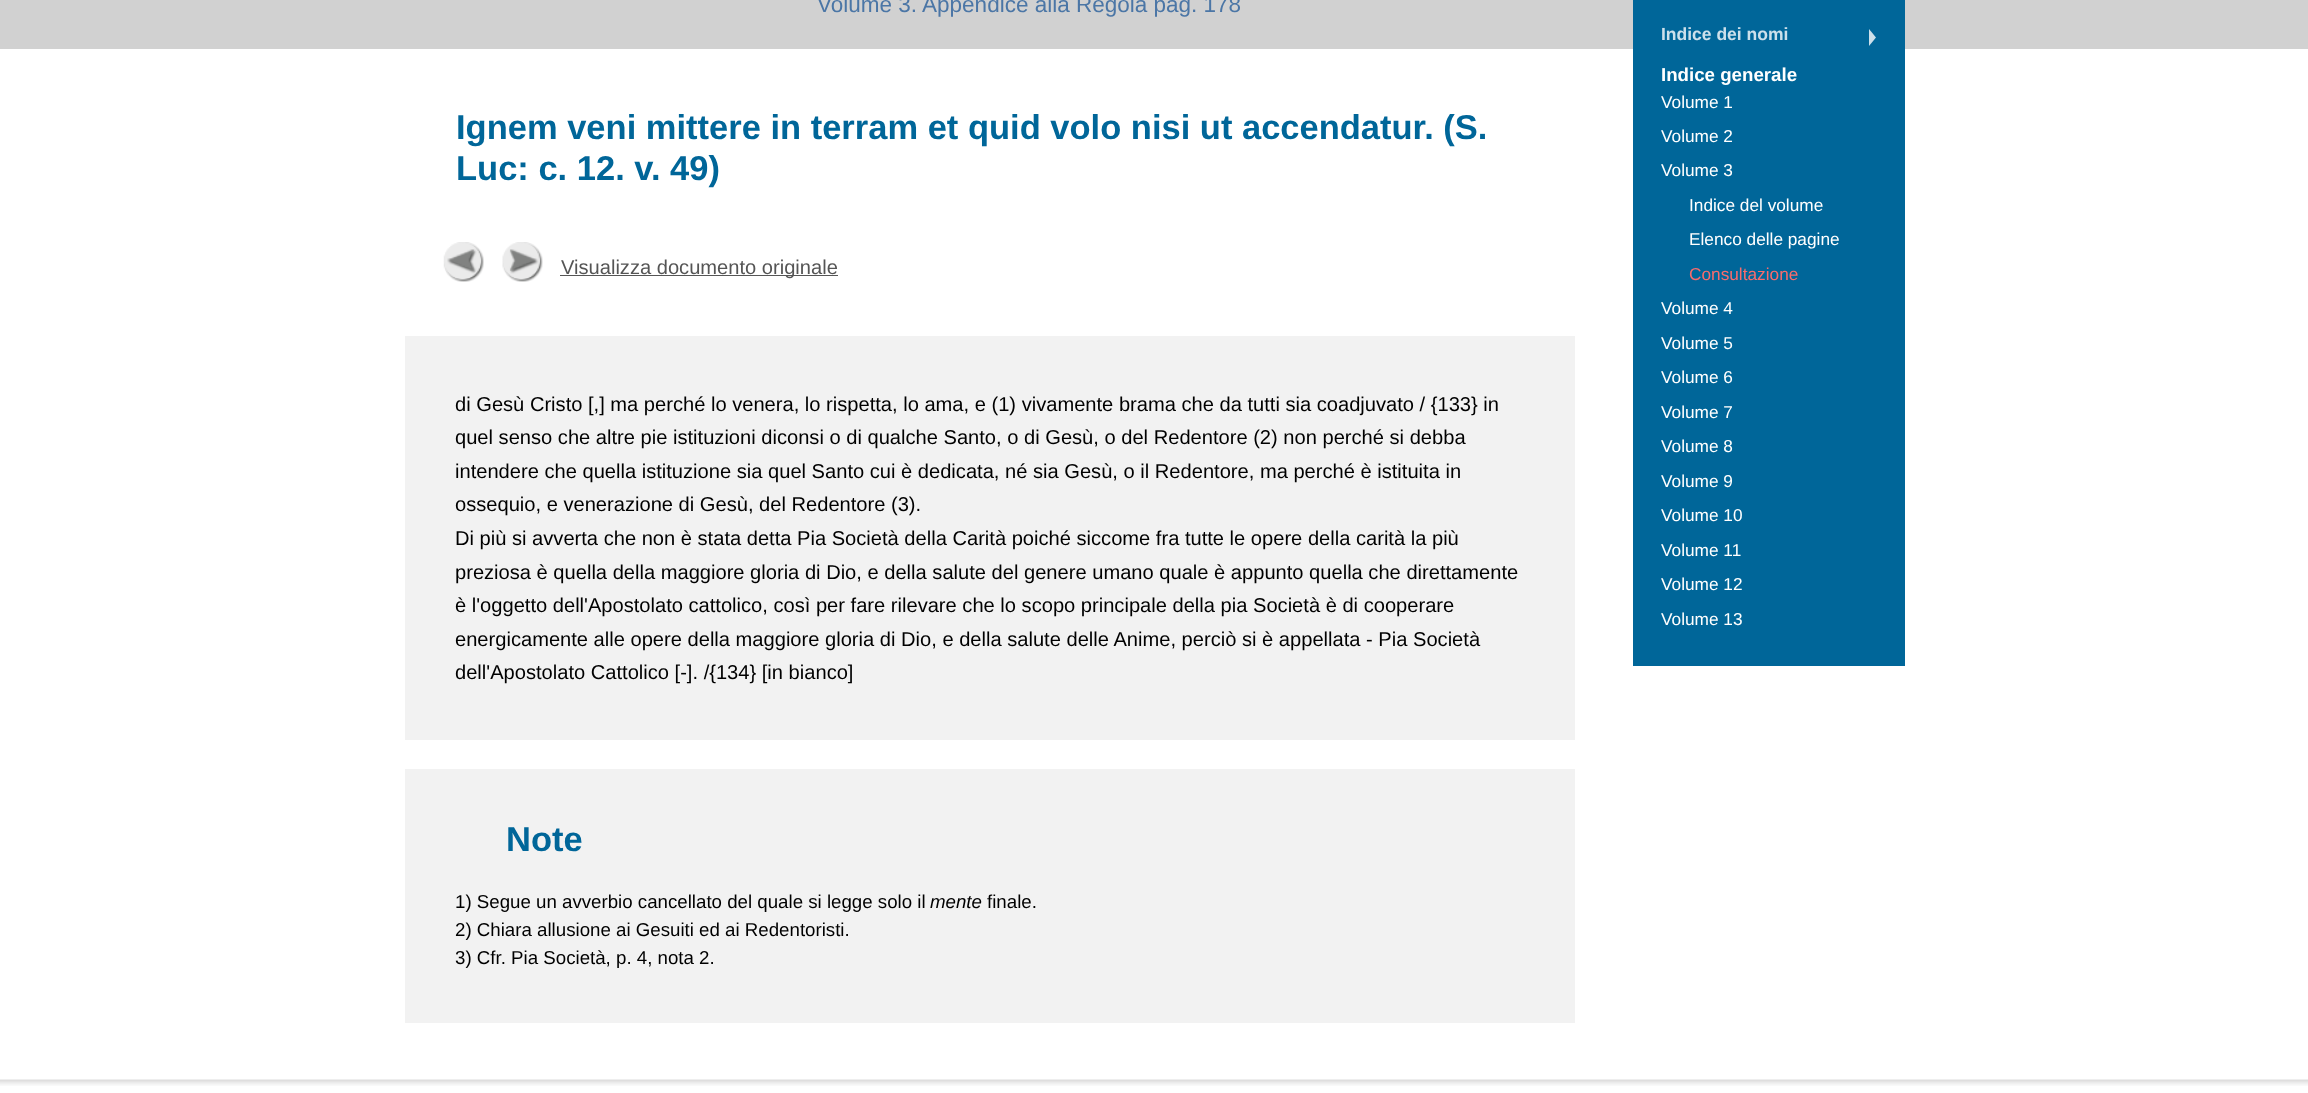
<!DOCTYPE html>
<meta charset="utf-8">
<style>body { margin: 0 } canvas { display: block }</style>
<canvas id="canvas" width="2308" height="1093"></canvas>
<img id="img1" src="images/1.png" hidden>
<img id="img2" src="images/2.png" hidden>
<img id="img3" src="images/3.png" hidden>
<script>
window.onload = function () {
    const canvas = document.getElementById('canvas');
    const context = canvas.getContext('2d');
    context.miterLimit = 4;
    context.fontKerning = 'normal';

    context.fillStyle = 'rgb(255, 255, 255)';
    context.fillRect(0, 0, 2308, 1093);
    context.fillStyle = 'rgb(209, 209, 209)';
    context.fillRect(0, 0, 2308, 49);
    context.drawImage(document.getElementById('img1'), 443, 242, 41, 40);
    context.drawImage(document.getElementById('img2'), 502, 242, 41, 40);
    context.fillStyle = 'rgb(85, 85, 85)';
    context.fillRect(560, 275, 278, 1);
    context.fillStyle = 'rgb(242, 242, 242)';
    context.fillRect(405, 336, 1170, 404);
    context.fillRect(405, 769, 1170, 254);
    context.fillStyle = 'rgb(0, 102, 153)';
    context.fillRect(1633, 0, 272, 666);
    context.fillStyle = 'rgb(204, 224, 235)';
    context.beginPath();
    context.moveTo(1869, 46);
    context.lineTo(1869, 29);
    context.lineTo(1876, 37.5);
    context.closePath();
    context.fill();
    context.drawImage(document.getElementById('img3'), 0, 1079, 2308, 7);
    context.font = '22.5px Liberation Sans';
    context.fillStyle = 'rgb(75, 118, 166)';
    context.fillText('Volume 3. Appendice alla Regola pag. 178', 817, 12);
    context.font = 'bold 34.5px Liberation Sans';
    context.fillStyle = 'rgb(0, 102, 153)';
    context.fillText('Ignem veni mittere in terram et quid volo nisi ut accendatur. (S.', 456, 139);
    context.fillText('Luc: c. 12. v. 49)', 456, 180);
    context.font = '20.12px Liberation Sans';
    context.fillStyle = 'rgb(85, 85, 85)';
    context.fillText('Visualizza documento originale', 561, 274);
    context.fillStyle = 'rgb(0, 0, 0)';
    context.fillText('di Gesù Cristo [,] ma perché lo venera, lo rispetta, lo ama, e (1) vivamente brama che da tutti sia coadjuvato / {133} in', 455, 411);
    context.fillText('quel senso che altre pie istituzioni diconsi o di qualche Santo, o di Gesù, o del Redentore (2) non perché si debba', 455, 444);
    context.fillText('intendere che quella istituzione sia quel Santo cui è dedicata, né sia Gesù, o il Redentore, ma perché è istituita in', 455, 478);
    context.fillText('ossequio, e venerazione di Gesù, del Redentore (3).', 455, 511);
    context.fillText('Di più si avverta che non è stata detta Pia Società della Carità poiché siccome fra tutte le opere della carità la più', 455, 545);
    context.fillText('preziosa è quella della maggiore gloria di Dio, e della salute del genere umano quale è appunto quella che direttamente', 455, 579);
    context.fillText('è l\'oggetto dell\'Apostolato cattolico, così per fare rilevare che lo scopo principale della pia Società è di cooperare', 455, 612);
    context.fillText('energicamente alle opere della maggiore gloria di Dio, e della salute delle Anime, perciò si è appellata - Pia Società', 455, 646);
    context.fillText('dell\'Apostolato Cattolico [-]. /{134} [in bianco]', 455, 679);
    context.font = 'bold 34.5px Liberation Sans';
    context.fillStyle = 'rgb(0, 102, 153)';
    context.fillText('Note', 506, 851);
    context.font = '18.7px Liberation Sans';
    context.fillStyle = 'rgb(0, 0, 0)';
    context.fillText('1) Segue un avverbio cancellato del quale si legge solo il', 455, 908);
    context.font = 'italic 18.7px Liberation Sans';
    context.fillText('mente', 930, 908);
    context.font = '18.7px Liberation Sans';
    context.fillText('finale.', 987, 908);
    context.fillText('2) Chiara allusione ai Gesuiti ed ai Redentoristi.', 455, 936);
    context.fillText('3) Cfr. Pia Società, p. 4, nota 2.', 455, 964);
    context.font = 'bold 17.5px Liberation Sans';
    context.fillStyle = 'rgb(204, 224, 235)';
    context.fillText('Indice dei nomi', 1661, 40);
    context.font = 'bold 18.7px Liberation Sans';
    context.fillStyle = 'rgb(255, 255, 255)';
    context.fillText('Indice generale', 1661, 81);
    context.font = '17.25px Liberation Sans';
    context.fillText('Volume 1', 1661, 108);
    context.fillText('Volume 2', 1661, 142);
    context.fillText('Volume 3', 1661, 176);
    context.fillText('Indice del volume', 1689, 211);
    context.fillText('Elenco delle pagine', 1689, 245);
    context.fillStyle = 'rgb(249, 108, 108)';
    context.fillText('Consultazione', 1689, 280);
    context.fillStyle = 'rgb(255, 255, 255)';
    context.fillText('Volume 4', 1661, 314);
    context.fillText('Volume 5', 1661, 349);
    context.fillText('Volume 6', 1661, 383);
    context.fillText('Volume 7', 1661, 418);
    context.fillText('Volume 8', 1661, 452);
    context.fillText('Volume 9', 1661, 487);
    context.fillText('Volume 10', 1661, 521);
    context.fillText('Volume 11', 1661, 556);
    context.fillText('Volume 12', 1661, 590);
    context.fillText('Volume 13', 1661, 625);
};
</script>
